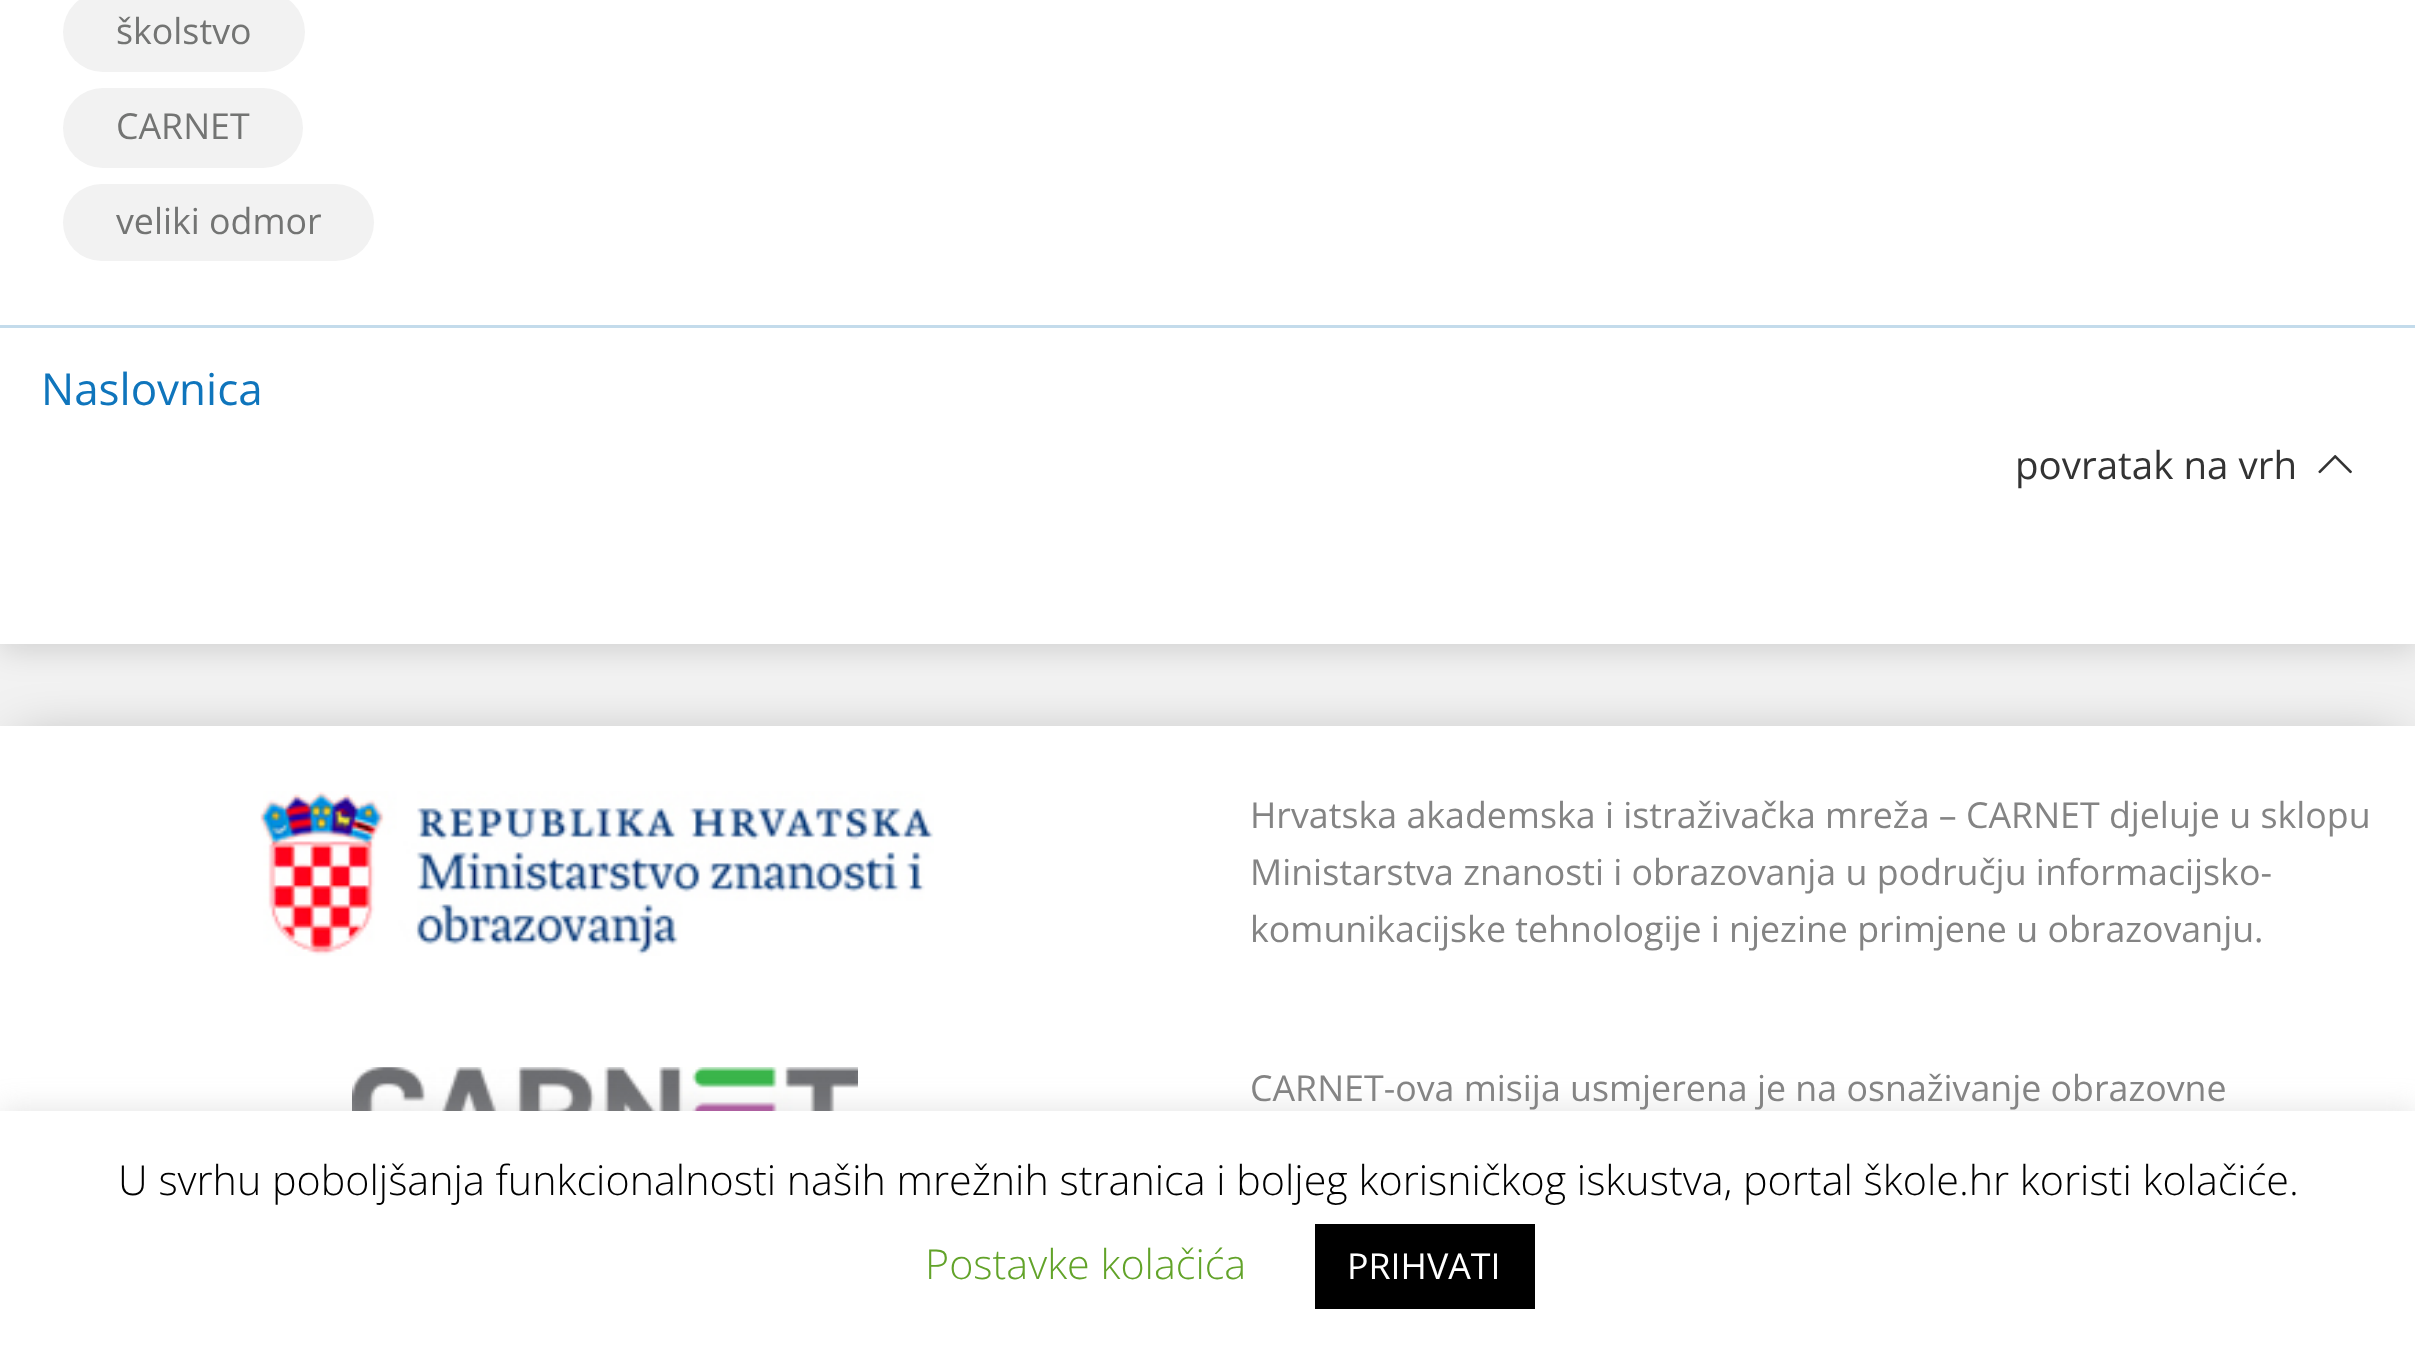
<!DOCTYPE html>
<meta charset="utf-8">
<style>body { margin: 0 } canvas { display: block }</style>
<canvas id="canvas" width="2415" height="1354"></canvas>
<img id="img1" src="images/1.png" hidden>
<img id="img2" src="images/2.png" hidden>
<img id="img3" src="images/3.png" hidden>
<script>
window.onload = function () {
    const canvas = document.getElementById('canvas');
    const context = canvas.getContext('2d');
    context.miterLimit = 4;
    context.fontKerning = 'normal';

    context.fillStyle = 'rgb(242, 242, 242)';
    context.fillRect(0, 0, 2415, 1354);
    context.fillStyle = 'rgba(0, 0, 0, 0.15)';
    context.filter = 'blur(16.5px)';
    context.beginPath();
    context.rect(0, -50, 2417, 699);
    context.fill();
    context.filter = 'none';
    context.fillStyle = 'rgb(255, 255, 255)';
    context.fillRect(0, 0, 2415, 644);
    context.fillStyle = 'rgb(242, 242, 242)';
    context.beginPath();
    context.roundRect(63, -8, 242, 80, 40);
    context.fill();
    context.beginPath();
    context.roundRect(63, 88, 240, 80, 40);
    context.fill();
    context.beginPath();
    context.roundRect(63, 184, 311, 77, 38.5);
    context.fill();
    context.fillStyle = 'rgb(195, 219, 235)';
    context.fillRect(0, 325, 2415, 3);
    context.drawImage(document.getElementById('img1'), 2318, 454, 34, 20);
    context.fillStyle = 'rgba(0, 0, 0, 0.3)';
    context.filter = 'blur(27.5px)';
    context.beginPath();
    context.rect(17, 743, 2384, 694);
    context.fill();
    context.filter = 'none';
    context.fillStyle = 'rgb(255, 255, 255)';
    context.fillRect(0, 726, 2415, 385);
    context.drawImage(document.getElementById('img2'), 260, 791, 674, 165);
    context.drawImage(document.getElementById('img3'), 352, 1067, 506, 44);
    context.fillStyle = 'rgba(172, 171, 171, 0.3)';
    context.filter = 'blur(14px)';
    context.beginPath();
    context.rect(0, 1108, 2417, 245);
    context.fill();
    context.filter = 'none';
    context.fillStyle = 'rgb(255, 255, 255)';
    context.fillRect(0, 1111, 2415, 243);
    context.fillStyle = 'rgb(0, 0, 0)';
    context.fillRect(1315, 1224, 220, 85);
    context.font = '35.75px Open Sans';
    context.fillStyle = 'rgb(115, 116, 115)';
    context.fillText('školstvo', 116, 44);
    context.fillText('CARNET', 116, 139);
    context.fillText('veliki odmor', 116, 234);
    context.font = '44px Open Sans';
    context.fillStyle = 'rgb(15, 117, 188)';
    context.fillText('Naslovnica', 41, 405);
    context.font = '38.5px Open Sans';
    context.fillStyle = 'rgb(51, 51, 51)';
    context.fillText('povratak na vrh', 2015, 479);
    context.font = '35.75px Open Sans';
    context.fillStyle = 'rgb(132, 132, 132)';
    context.fillText('Hrvatska akademska i istraživačka mreža – CARNET djeluje u sklopu', 1250, 828);
    context.fillText('Ministarstva znanosti i obrazovanja u području informacijsko-', 1250, 885);
    context.fillText('komunikacijske tehnologije i njezine primjene u obrazovanju.', 1250, 942);
    context.fillText('CARNET-ova misija usmjerena je na osnaživanje obrazovne', 1250, 1101);
    context.font = '300 41.25px Open Sans';
    context.fillStyle = 'rgb(0, 0, 0)';
    context.fillText('U svrhu poboljšanja funkcionalnosti naših mrežnih stranica i boljeg korisničkog iskustva, portal škole.hr koristi kolačiće.', 118, 1195);
    context.fillStyle = 'rgb(98, 163, 41)';
    context.fillText('Postavke kolačića', 925, 1279);
    context.font = '35.75px Open Sans';
    context.fillStyle = 'rgb(255, 255, 255)';
    context.fillText('PRIHVATI', 1347, 1279);
};
</script>
